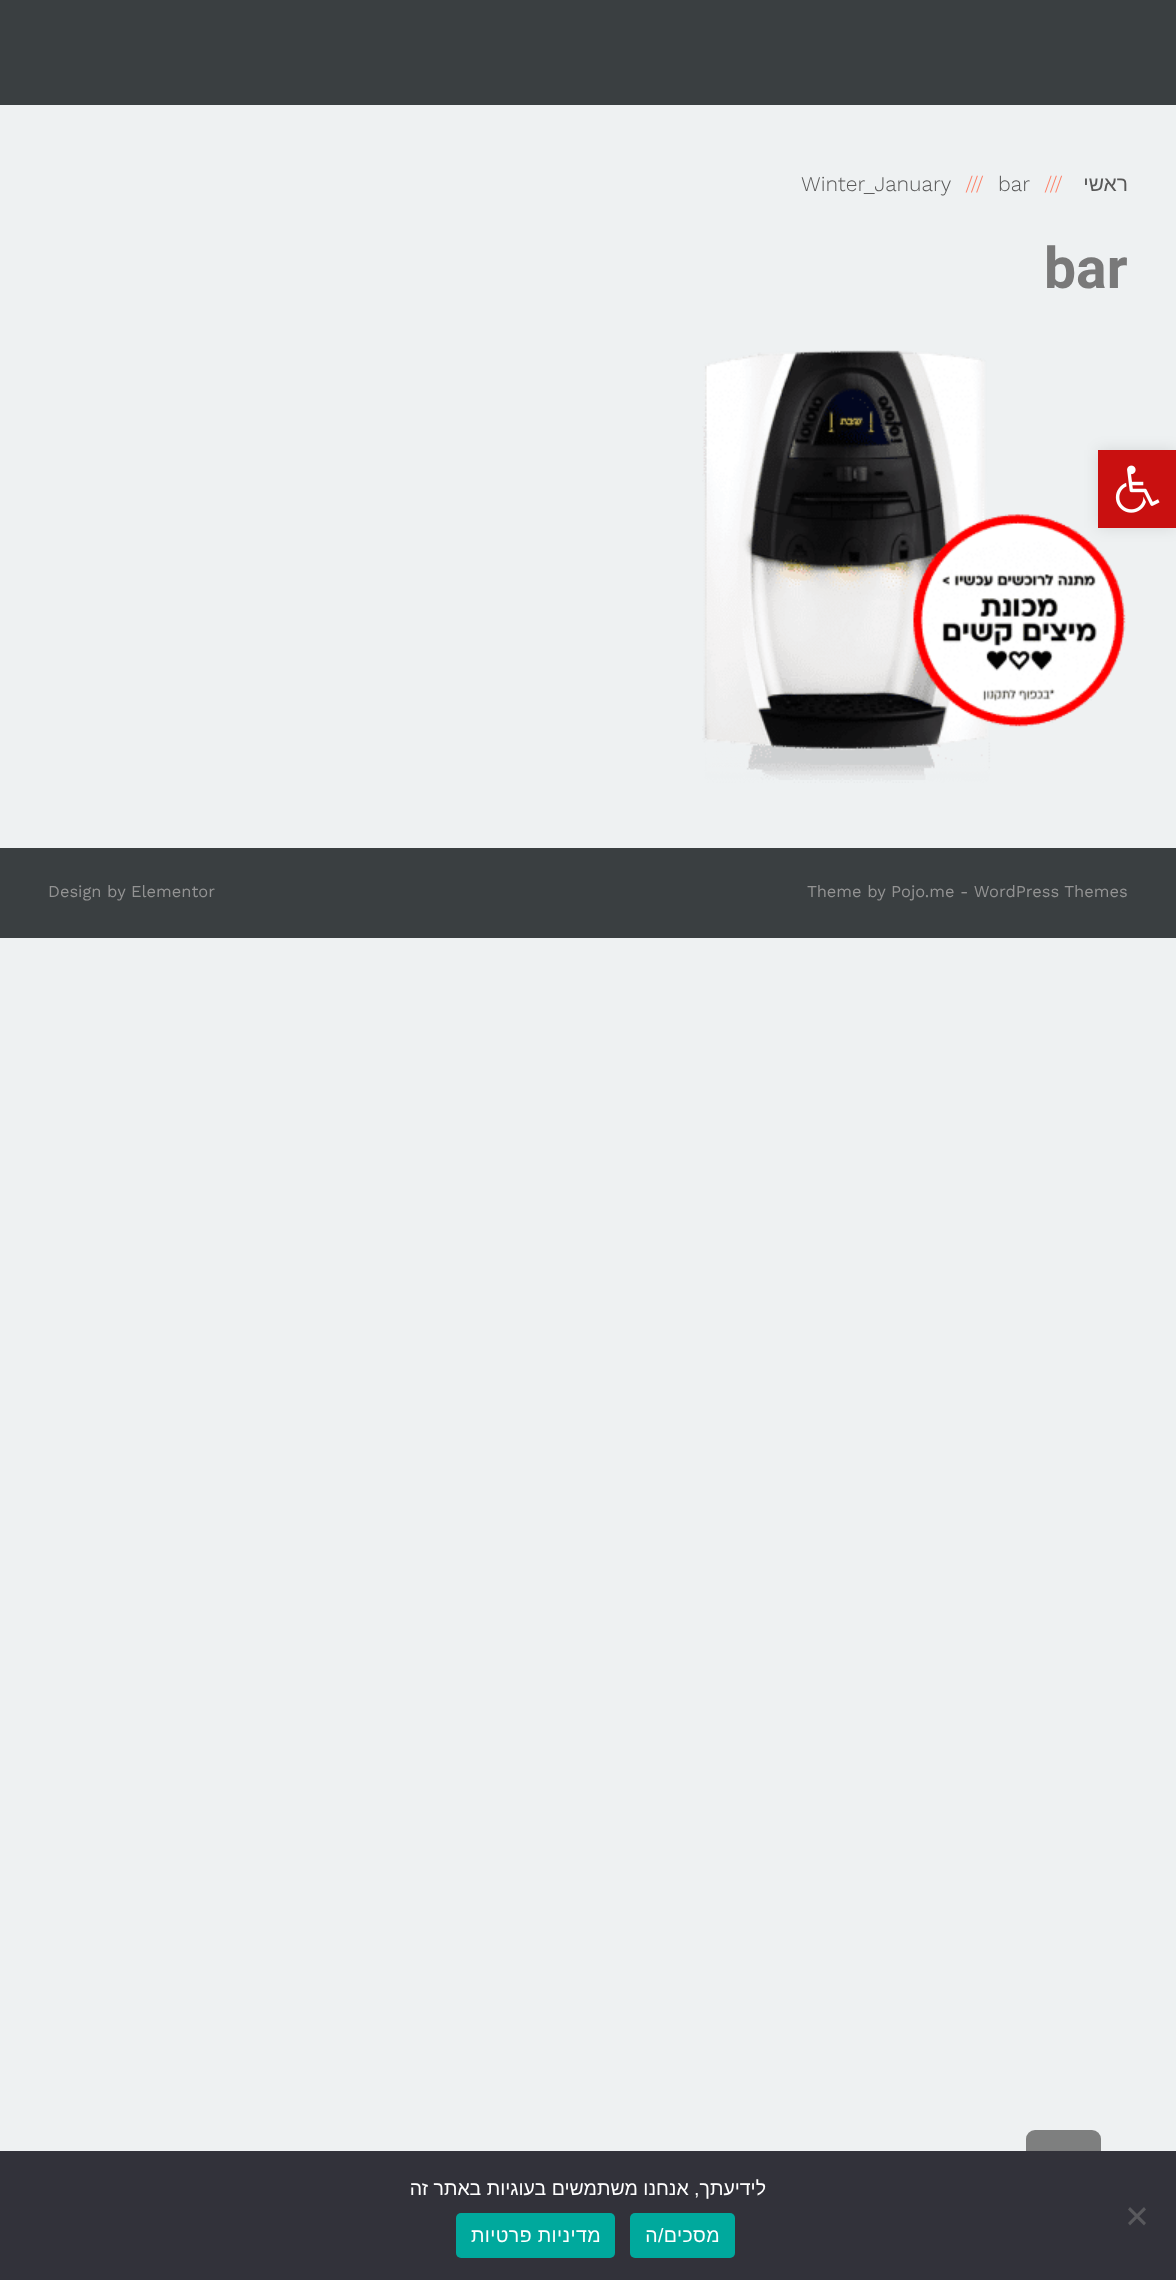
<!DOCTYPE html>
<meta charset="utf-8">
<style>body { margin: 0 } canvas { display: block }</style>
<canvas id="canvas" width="1176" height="2280"></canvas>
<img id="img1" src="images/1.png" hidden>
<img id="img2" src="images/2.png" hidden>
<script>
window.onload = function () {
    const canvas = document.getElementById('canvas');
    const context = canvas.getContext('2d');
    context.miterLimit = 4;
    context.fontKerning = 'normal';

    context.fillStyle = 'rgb(238, 241, 242)';
    context.fillRect(0, 0, 1176, 2280);
    context.fillStyle = 'rgb(58, 63, 65)';
    context.fillRect(0, 0, 1176, 105);
    context.drawImage(document.getElementById('img1'), 702, 350, 424, 433);
    context.fillRect(0, 848, 1176, 90);
    context.fillStyle = 'rgba(0, 0, 0, 0.1)';
    context.filter = 'blur(7.5px)';
    context.beginPath();
    context.rect(1098, 450, 78, 78);
    context.fill();
    context.filter = 'none';
    context.fillStyle = 'rgb(201, 16, 16)';
    context.fillRect(1098, 450, 78, 78);
    context.drawImage(document.getElementById('img2'), 1115, 465, 45, 48);
    context.fillStyle = 'rgb(126, 127, 127)';
    context.beginPath();
    context.roundRect(1026, 2130, 75, 75, 9);
    context.fill();
    context.fillStyle = 'rgb(50, 50, 58)';
    context.fillRect(0, 2151, 1176, 129);
    context.fillStyle = 'rgb(89, 89, 93)';
    context.beginPath();
    context.moveTo(1144, 2207);
    context.lineTo(1146, 2209.5);
    context.lineTo(1130, 2225.5);
    context.lineTo(1128, 2223);
    context.closePath();
    context.fill();
    context.beginPath();
    context.moveTo(1128, 2209.5);
    context.lineTo(1130, 2207);
    context.lineTo(1146, 2223);
    context.lineTo(1144, 2225.5);
    context.closePath();
    context.fill();
    context.fillStyle = 'rgb(0, 169, 157)';
    context.beginPath();
    context.roundRect(456, 2213, 159, 45, 5);
    context.fill();
    context.beginPath();
    context.roundRect(630, 2213, 105, 45, 5);
    context.fill();
    context.font = '300 21px Work Sans';
    context.fillStyle = 'rgb(89, 89, 89)';
    context.fillText('Winter_January', 801, 191);
    context.fillStyle = 'rgb(254, 127, 102)';
    context.fillText('///', 965, 191);
    context.fillStyle = 'rgb(89, 89, 89)';
    context.fillText('bar', 998, 191);
    context.fillStyle = 'rgb(254, 127, 102)';
    context.fillText('///', 1044, 191);
    context.direction = 'rtl';
    context.font = '21px Liberation Sans';
    context.fillStyle = 'rgb(89, 89, 89)';
    context.fillText('ראשי', 1128, 191);
    context.direction = 'ltr';
    context.font = 'bold 57px Heebo';
    context.fillStyle = 'rgb(121, 121, 121)';
    context.fillText('bar', 1044, 288);
    context.font = '16.5px Work Sans';
    context.fillStyle = 'rgb(147, 147, 147)';
    context.fillText('Design by Elementor', 48, 897);
    context.fillText('Theme by Pojo.me - WordPress Themes', 807, 897);
    context.direction = 'rtl';
    context.font = '19.5px Liberation Sans';
    context.fillStyle = 'rgb(255, 255, 255)';
    context.fillText('לידיעתך, אנחנו משתמשים בעוגיות באתר זה', 766, 2195);
    context.letterSpacing = '0.4px';
    context.fillText('מדיניות פרטיות', 601, 2242);
    context.fillText('מסכים/ה', 720, 2242);
};
</script>
